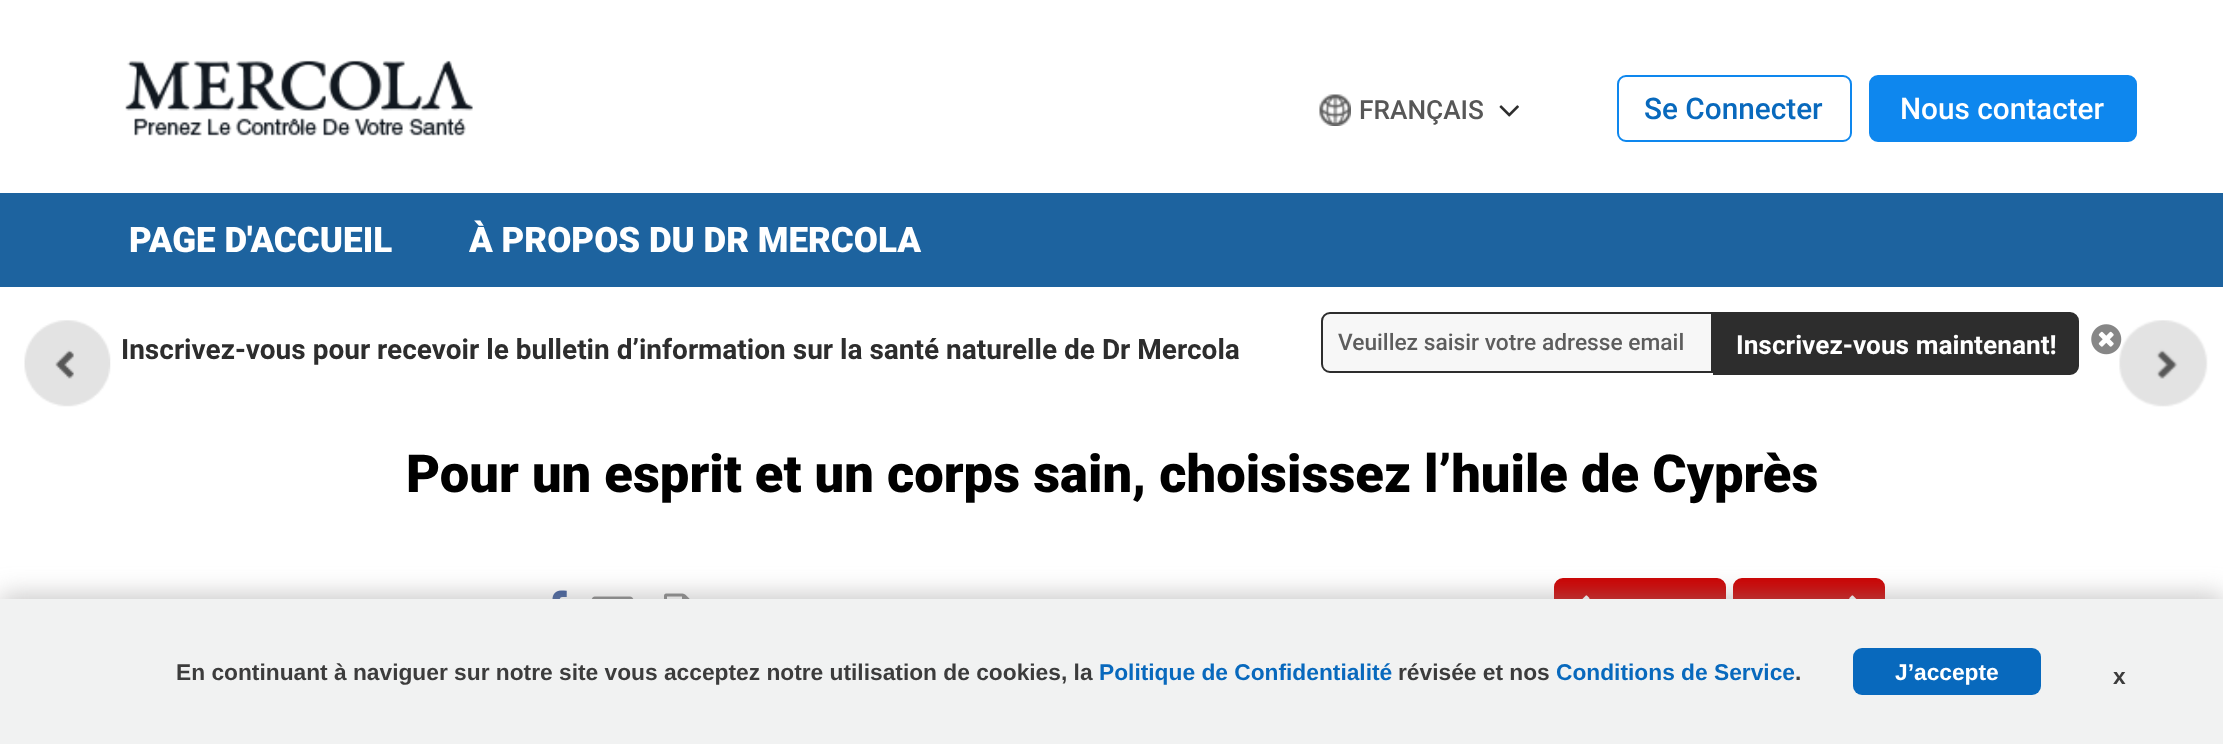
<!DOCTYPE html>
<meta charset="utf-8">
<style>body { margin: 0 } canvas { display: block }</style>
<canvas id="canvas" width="2223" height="744"></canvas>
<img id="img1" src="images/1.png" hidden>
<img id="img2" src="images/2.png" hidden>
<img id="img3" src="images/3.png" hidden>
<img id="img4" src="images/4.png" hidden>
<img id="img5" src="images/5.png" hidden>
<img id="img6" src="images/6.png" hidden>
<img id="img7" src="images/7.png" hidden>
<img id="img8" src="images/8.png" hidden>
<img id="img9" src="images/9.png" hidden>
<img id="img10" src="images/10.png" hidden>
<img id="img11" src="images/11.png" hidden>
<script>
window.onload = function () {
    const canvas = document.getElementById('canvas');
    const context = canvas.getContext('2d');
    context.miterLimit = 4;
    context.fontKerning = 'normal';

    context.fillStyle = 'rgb(255, 255, 255)';
    context.fillRect(0, 0, 2223, 744);
    context.drawImage(document.getElementById('img1'), 125, 60, 348, 76);
    context.drawImage(document.getElementById('img2'), 1319, 94, 32, 32);
    context.drawImage(document.getElementById('img3'), 1499, 105, 20, 12);
    context.beginPath();
    context.roundRect(1618, 76, 233, 65, 8);
    context.strokeStyle = 'rgb(14, 135, 238)';
    context.lineWidth = 2;
    context.stroke();
    context.fillStyle = 'rgb(14, 135, 238)';
    context.beginPath();
    context.roundRect(1870, 76, 266, 65, 8);
    context.fill();
    context.stroke();
    context.fillStyle = 'rgb(29, 99, 159)';
    context.fillRect(0, 193, 2223, 94);
    context.fillStyle = 'rgb(247, 247, 247)';
    context.beginPath();
    context.roundRect(1322, 313, 390, 59, [8, 0, 0, 8]);
    context.fill();
    context.strokeStyle = 'rgb(45, 45, 45)';
    context.stroke();
    context.fillStyle = 'rgb(45, 45, 45)';
    context.beginPath();
    context.roundRect(1714, 313, 364, 61, [0, 8, 8, 0]);
    context.fill();
    context.stroke();
    context.drawImage(document.getElementById('img4'), 2091, 324, 31, 31);
    context.drawImage(document.getElementById('img5'), 24, 320, 87, 87);
    context.drawImage(document.getElementById('img6'), 2119, 320, 89, 87);
    context.drawImage(document.getElementById('img7'), 552, 590, 15, 9);
    context.drawImage(document.getElementById('img8'), 591, 596, 43, 3);
    context.drawImage(document.getElementById('img9'), 664, 593, 26, 6);
    context.fillStyle = 'rgb(204, 0, 0)';
    context.beginPath();
    context.roundRect(1555, 579, 170, 57, 8);
    context.fill();
    context.strokeStyle = 'rgb(204, 0, 0)';
    context.stroke();
    context.drawImage(document.getElementById('img10'), 1582, 595, 8, 4);
    context.beginPath();
    context.roundRect(1734, 579, 150, 57, 8);
    context.fill();
    context.stroke();
    context.drawImage(document.getElementById('img11'), 1849, 595, 8, 4);
    context.fillStyle = 'rgba(146, 144, 144, 0.5)';
    context.filter = 'blur(13px)';
    context.beginPath();
    context.rect(0, 595, 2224, 147);
    context.fill();
    context.filter = 'none';
    context.fillStyle = 'rgb(241, 242, 242)';
    context.fillRect(0, 599, 2223, 145);
    context.fillStyle = 'rgb(8, 105, 189)';
    context.beginPath();
    context.roundRect(1853, 648, 188, 47, 9);
    context.fill();
    context.font = '500 26.25px Roboto';
    context.fillStyle = 'rgb(87, 87, 87)';
    context.fillText('FRANÇAIS', 1359, 119);
    context.font = '500 29.75px Roboto';
    context.fillStyle = 'rgb(8, 105, 189)';
    context.fillText('Se Connecter', 1644, 119);
    context.fillStyle = 'rgb(255, 255, 255)';
    context.fillText('Nous contacter', 1900, 119);
    context.font = '900 35px Roboto';
    context.fillText('PAGE D\'ACCUEIL', 129, 252);
    context.fillText('À PROPOS DU DR MERCOLA', 469, 252);
    context.font = 'bold 28px Roboto';
    context.fillStyle = 'rgb(45, 45, 45)';
    context.fillText('Inscrivez-vous pour recevoir le bulletin d’information sur la santé naturelle de Dr Mercola', 121, 359);
    context.font = '500 22.75px Roboto';
    context.fillStyle = 'rgb(93, 93, 93)';
    context.fillText('Veuillez saisir votre adresse email', 1338, 350);
    context.font = 'bold 26.25px Roboto';
    context.fillStyle = 'rgb(255, 255, 255)';
    context.fillText('Inscrivez-vous maintenant!', 1736, 354);
    context.font = '900 52.5px Roboto';
    context.fillStyle = 'rgb(0, 0, 0)';
    context.fillText('Pour un esprit et un corps sain, choisissez l’huile de Cyprès', 406, 492);
    context.font = 'bold 22.75px Liberation Sans';
    context.fillStyle = 'rgb(60, 60, 60)';
    context.fillText('En continuant à naviguer sur notre site vous acceptez notre utilisation de cookies, la', 176, 680);
    context.fillStyle = 'rgb(8, 105, 189)';
    context.fillText('Politique de Confidentialité', 1099, 680);
    context.fillStyle = 'rgb(60, 60, 60)';
    context.fillText('révisée et nos', 1398, 680);
    context.fillStyle = 'rgb(8, 105, 189)';
    context.fillText('Conditions de Service', 1556, 680);
    context.fillStyle = 'rgb(60, 60, 60)';
    context.fillText('.', 1795, 680);
    context.fillStyle = 'rgb(255, 255, 255)';
    context.fillText('J’accepte', 1895, 680);
    context.fillStyle = 'rgb(60, 60, 60)';
    context.fillText('x', 2113, 684);
};
</script>
